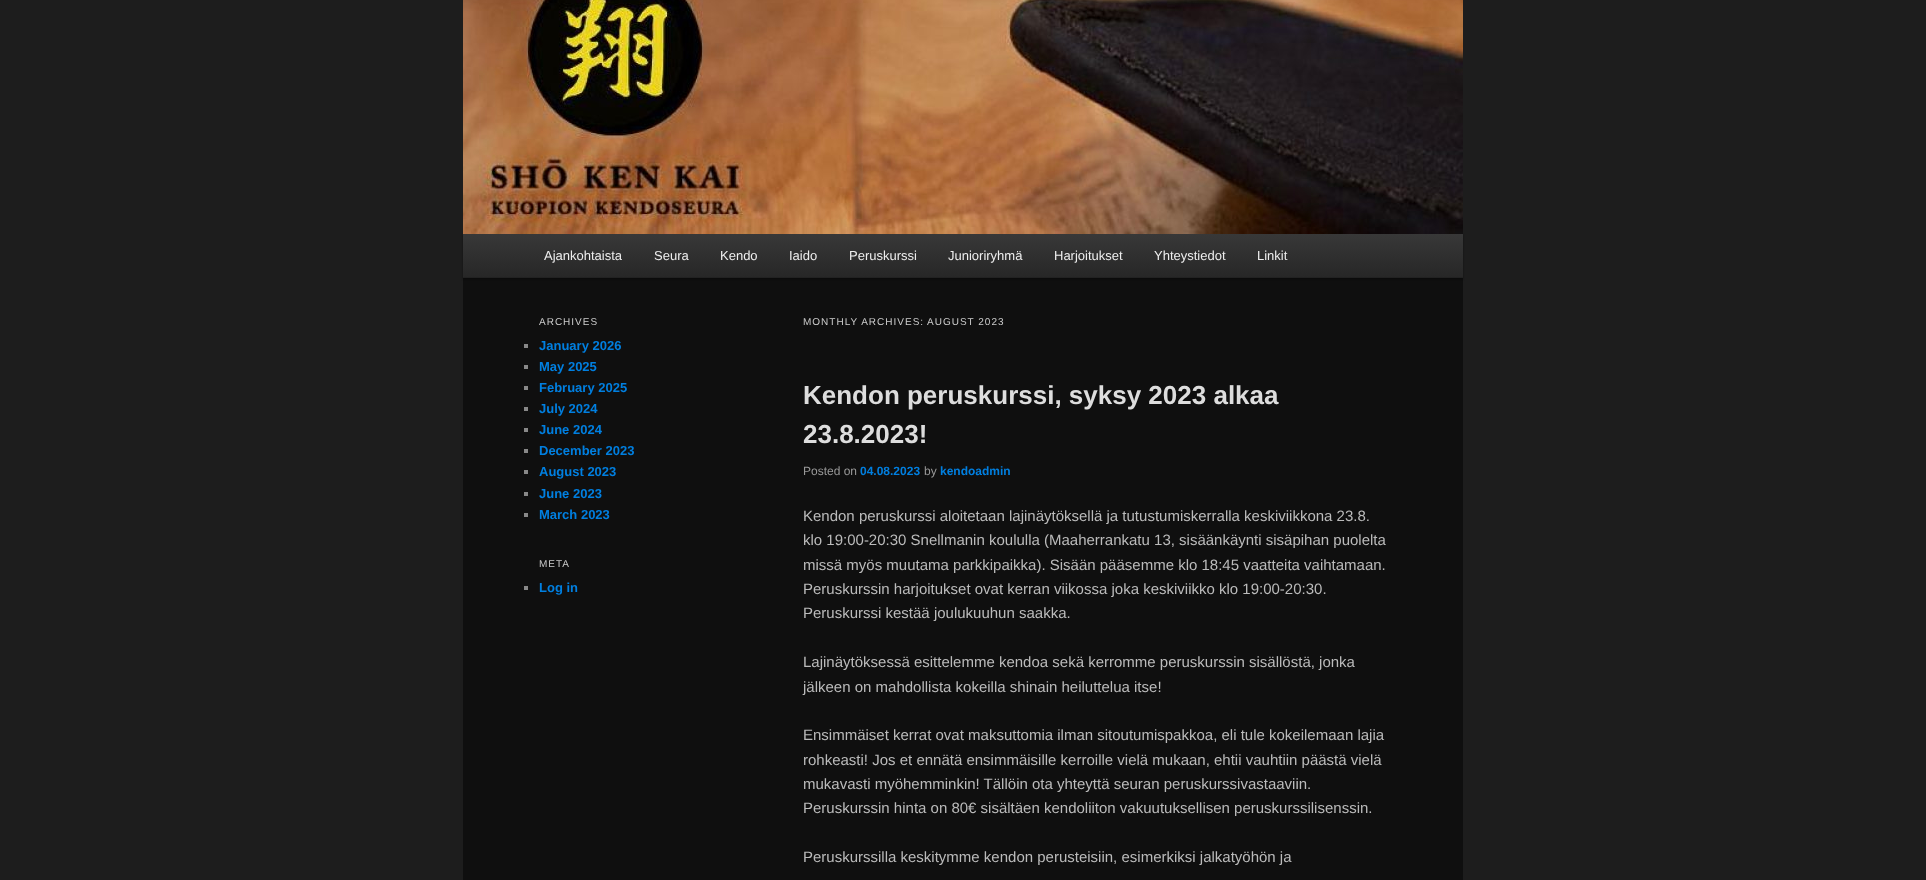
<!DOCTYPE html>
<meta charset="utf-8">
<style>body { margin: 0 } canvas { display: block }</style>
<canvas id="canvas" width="1926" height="880"></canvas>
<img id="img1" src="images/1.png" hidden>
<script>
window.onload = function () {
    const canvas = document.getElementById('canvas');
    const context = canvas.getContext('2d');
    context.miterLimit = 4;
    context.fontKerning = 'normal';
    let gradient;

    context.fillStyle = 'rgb(29, 29, 29)';
    context.fillRect(0, 0, 1926, 880);
    context.fillStyle = 'rgb(15, 15, 15)';
    context.fillRect(463, 278, 1000, 602);
    context.fillStyle = 'rgba(0, 0, 0, 0.4)';
    context.filter = 'blur(1px)';
    context.beginPath();
    context.rect(463, 235, 1000, 44);
    context.fill();
    context.filter = 'none';
    context.drawImage(document.getElementById('img1'), 463, 0, 1000, 234);
    gradient = context.createLinearGradient(963, 234, 963, 277);
    gradient.addColorStop(0, 'rgb(56, 56, 56)');
    gradient.addColorStop(1, 'rgb(39, 39, 39)');
    context.fillStyle = gradient;
    context.fillRect(463, 234, 1000, 43);
    context.fillStyle = 'rgb(34, 34, 34)';
    context.fillRect(463, 277, 1000, 1);
    context.fillStyle = 'rgb(136, 136, 136)';
    context.fillRect(524, 344, 4, 4);
    context.fillRect(524, 365, 4, 4);
    context.fillRect(524, 386, 4, 4);
    context.fillRect(524, 407, 4, 4);
    context.fillRect(524, 428, 4, 4);
    context.fillRect(524, 449, 4, 4);
    context.fillRect(524, 470, 4, 4);
    context.fillRect(524, 492, 4, 4);
    context.fillRect(524, 513, 4, 4);
    context.fillRect(524, 586, 4, 4);
    context.font = '13px Liberation Sans';
    context.fillStyle = 'rgb(238, 238, 238)';
    context.fillText('Ajankohtaista', 544, 260);
    context.fillText('Seura', 654, 260);
    context.fillText('Kendo', 720, 260);
    context.fillText('Iaido', 789, 260);
    context.fillText('Peruskurssi', 849, 260);
    context.fillText('Junioriryhmä', 948, 260);
    context.fillText('Harjoitukset', 1054, 260);
    context.fillText('Yhteystiedot', 1154, 260);
    context.fillText('Linkit', 1257, 260);
    context.letterSpacing = '1px';
    context.font = '10px Liberation Sans';
    context.fillStyle = 'rgb(204, 204, 204)';
    context.fillText('ARCHIVES', 539, 325);
    context.letterSpacing = '0px';
    context.font = 'bold 13px Liberation Sans';
    context.fillStyle = 'rgb(0, 127, 224)';
    context.fillText('January 2026', 539, 350);
    context.fillText('May 2025', 539, 371);
    context.fillText('February 2025', 539, 392);
    context.fillText('July 2024', 539, 413);
    context.fillText('June 2024', 539, 434);
    context.fillText('December 2023', 539, 455);
    context.fillText('August 2023', 539, 476);
    context.fillText('June 2023', 539, 498);
    context.fillText('March 2023', 539, 519);
    context.letterSpacing = '1px';
    context.font = '10px Liberation Sans';
    context.fillStyle = 'rgb(204, 204, 204)';
    context.fillText('META', 539, 567);
    context.letterSpacing = '0px';
    context.font = 'bold 13px Liberation Sans';
    context.fillStyle = 'rgb(0, 127, 224)';
    context.fillText('Log in', 539, 592);
    context.letterSpacing = '1px';
    context.font = '10px Liberation Sans';
    context.fillStyle = 'rgb(204, 204, 204)';
    context.fillText('MONTHLY ARCHIVES:', 803, 325);
    context.fillText('AUGUST 2023', 927, 325);
    context.letterSpacing = '0px';
    context.font = 'bold 26px Liberation Sans';
    context.fillStyle = 'rgb(221, 221, 221)';
    context.fillText('Kendon peruskurssi, syksy 2023 alkaa', 803, 404);
    context.fillText('23.8.2023!', 803, 443);
    context.font = '12px Liberation Sans';
    context.fillStyle = 'rgb(153, 153, 153)';
    context.fillText('Posted on', 803, 475);
    context.font = 'bold 12px Liberation Sans';
    context.fillStyle = 'rgb(0, 127, 224)';
    context.fillText('04.08.2023', 860, 475);
    context.font = '12px Liberation Sans';
    context.fillStyle = 'rgb(153, 153, 153)';
    context.fillText('by', 924, 475);
    context.font = 'bold 12px Liberation Sans';
    context.fillStyle = 'rgb(0, 127, 224)';
    context.fillText('kendoadmin', 940, 475);
    context.font = '15px Liberation Sans';
    context.fillStyle = 'rgb(187, 187, 187)';
    context.fillText('Kendon peruskurssi aloitetaan lajinäytöksellä ja tutustumiskerralla keskiviikkona 23.8.', 803, 521);
    context.fillText('klo 19:00-20:30 Snellmanin koululla (Maaherrankatu 13, sisäänkäynti sisäpihan puolelta', 803, 545);
    context.fillText('missä myös muutama parkkipaikka). Sisään pääsemme klo 18:45 vaatteita vaihtamaan.', 803, 570);
    context.fillText('Peruskurssin harjoitukset ovat kerran viikossa joka keskiviikko klo 19:00-20:30.', 803, 594);
    context.fillText('Peruskurssi kestää joulukuuhun saakka.', 803, 618);
    context.fillText('Lajinäytöksessä esittelemme kendoa sekä kerromme peruskurssin sisällöstä, jonka', 803, 667);
    context.fillText('jälkeen on mahdollista kokeilla shinain heiluttelua itse!', 803, 692);
    context.fillText('Ensimmäiset kerrat ovat maksuttomia ilman sitoutumispakkoa, eli tule kokeilemaan lajia', 803, 740);
    context.fillText('rohkeasti! Jos et ennätä ensimmäisille kerroille vielä mukaan, ehtii vauhtiin päästä vielä', 803, 765);
    context.fillText('mukavasti myöhemminkin! Tällöin ota yhteyttä seuran peruskurssivastaaviin.', 803, 789);
    context.fillText('Peruskurssin hinta on 80€ sisältäen kendoliiton vakuutuksellisen peruskurssilisenssin.', 803, 813);
    context.fillText('Peruskurssilla keskitymme kendon perusteisiin, esimerkiksi jalkatyöhön ja', 803, 862);
};
</script>
